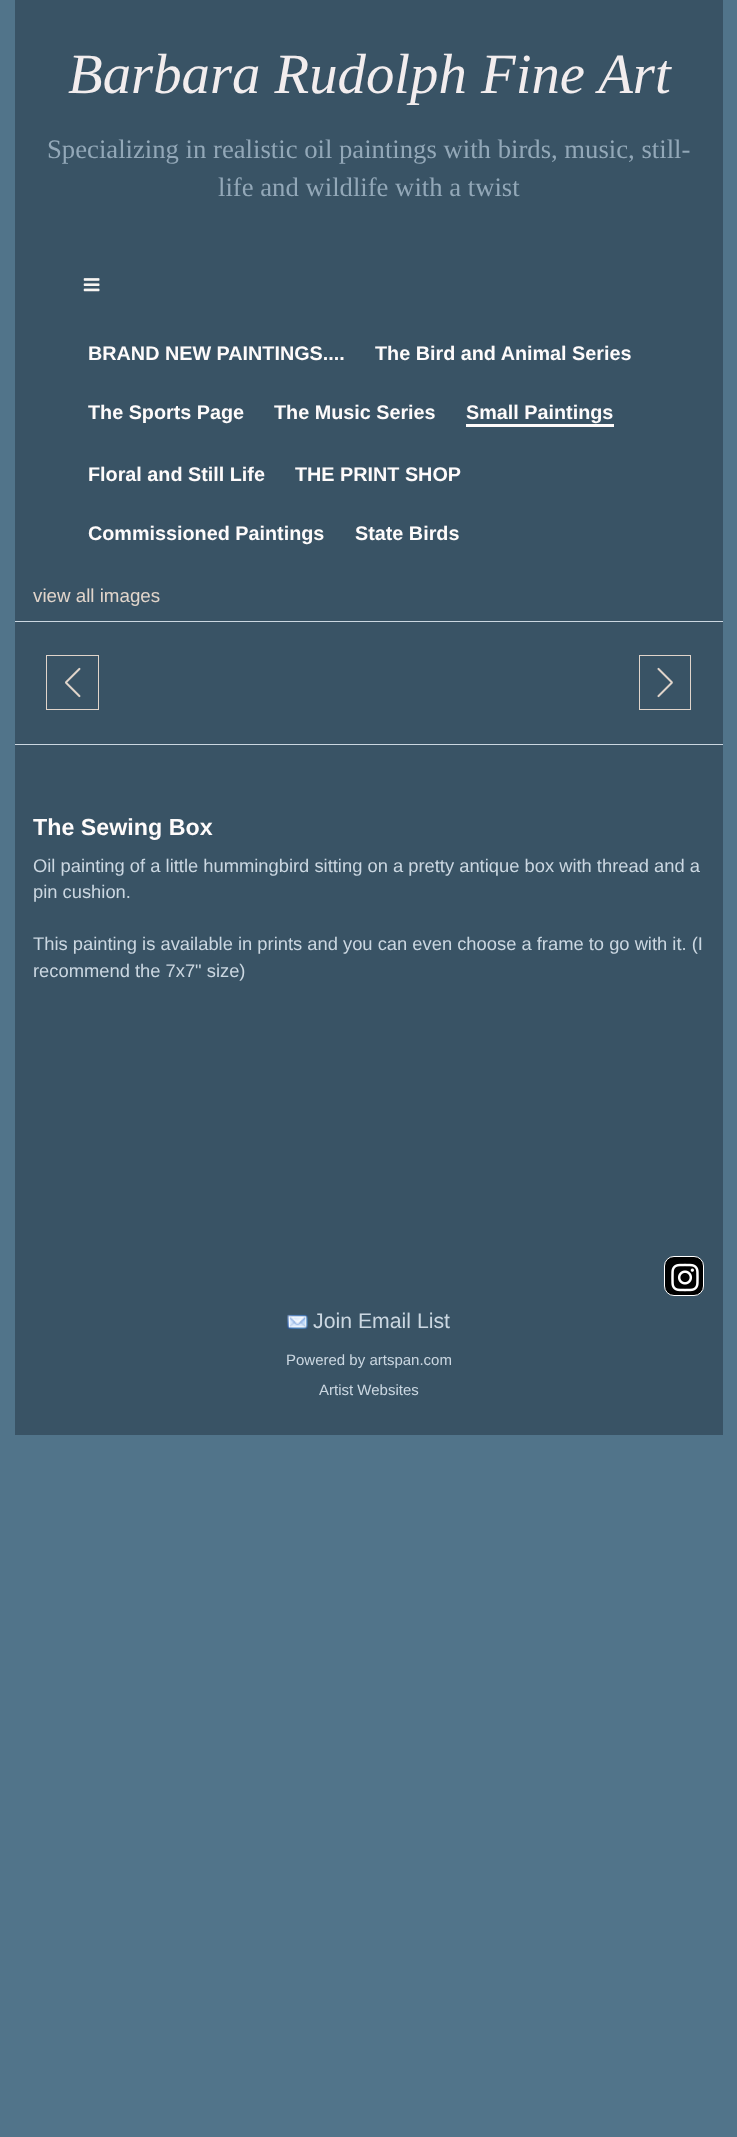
<!DOCTYPE html>
<meta charset="utf-8">
<style>body { margin: 0 } canvas { display: block }</style>
<canvas id="canvas" width="737" height="2137"></canvas>
<img id="img1" src="images/1.png" hidden>
<img id="img2" src="images/2.png" hidden>
<img id="img3" src="images/3.png" hidden>
<img id="img4" src="images/4.png" hidden>
<img id="img5" src="images/5.png" hidden>
<script>
window.onload = function () {
    const canvas = document.getElementById('canvas');
    const context = canvas.getContext('2d');
    context.miterLimit = 4;
    context.fontKerning = 'normal';

    context.fillStyle = 'rgb(81, 116, 138)';
    context.fillRect(0, 0, 737, 2137);
    context.fillStyle = 'rgb(57, 83, 101)';
    context.fillRect(15, 0, 708, 1435);
    context.drawImage(document.getElementById('img1'), 83, 278, 17, 14);
    context.fillStyle = 'rgb(254, 251, 251)';
    context.fillRect(466, 424, 148, 3);
    context.fillStyle = 'rgb(203, 215, 225)';
    context.fillRect(15, 621, 708, 1);
    context.fillRect(15, 744, 708, 1);
    context.strokeStyle = 'rgb(225, 213, 203)';
    context.strokeRect(46.5, 655.5, 52, 54);
    context.drawImage(document.getElementById('img2'), 65, 667, 16, 31);
    context.strokeRect(639.5, 655.5, 51, 54);
    context.drawImage(document.getElementById('img3'), 657, 667, 16, 31);
    context.fillStyle = 'rgb(0, 0, 0)';
    context.beginPath();
    context.roundRect(664.5, 1256.5, 39, 39, 9.5);
    context.fill();
    context.strokeStyle = 'rgb(255, 255, 255)';
    context.stroke();
    context.drawImage(document.getElementById('img4'), 671, 1263, 28, 29);
    context.drawImage(document.getElementById('img5'), 287, 1314, 21, 15);
    context.font = 'italic 56.75px Liberation Serif';
    context.fillStyle = 'rgb(242, 237, 238)';
    context.fillText('Barbara Rudolph Fine Art', 68, 93);
    context.font = '26.7px Liberation Serif';
    context.fillStyle = 'rgb(147, 168, 184)';
    context.fillText('Specializing in realistic oil paintings with birds, music, still-', 47, 158);
    context.fillText('life and wildlife with a twist', 218, 196);
    context.font = 'bold 19.8px Liberation Sans';
    context.fillStyle = 'rgb(254, 251, 251)';
    context.fillText('BRAND NEW PAINTINGS....', 88, 360);
    context.fillText('The Bird and Animal Series', 375, 360);
    context.fillText('The Sports Page', 88, 419);
    context.fillText('The Music Series', 274, 419);
    context.fillText('Small Paintings', 466, 419);
    context.fillText('Floral and Still Life', 88, 481);
    context.fillText('THE PRINT SHOP', 295, 481);
    context.fillText('Commissioned Paintings', 88, 540);
    context.fillText('State Birds', 355, 540);
    context.font = '18.75px Liberation Sans';
    context.fillStyle = 'rgb(225, 213, 203)';
    context.fillText('view all images', 33, 602);
    context.font = 'bold 23.25px Liberation Sans';
    context.fillStyle = 'rgb(254, 251, 251)';
    context.fillText('The Sewing Box', 33, 835);
    context.font = '18.35px Liberation Sans';
    context.fillStyle = 'rgb(203, 215, 225)';
    context.fillText('Oil painting of a little hummingbird sitting on a pretty antique box with thread and a', 33, 872);
    context.fillText('pin cushion.', 33, 898);
    context.fillText('This painting is available in prints and you can even choose a frame to go with it. (I', 33, 950);
    context.fillText('recommend the 7x7" size)', 33, 977);
    context.font = '21.25px Liberation Sans';
    context.fillText('Join Email List', 313, 1328);
    context.font = '15px Liberation Sans';
    context.fillText('Powered by artspan.com', 286, 1365);
    context.fillText('Artist Websites', 319, 1395);
};
</script>
